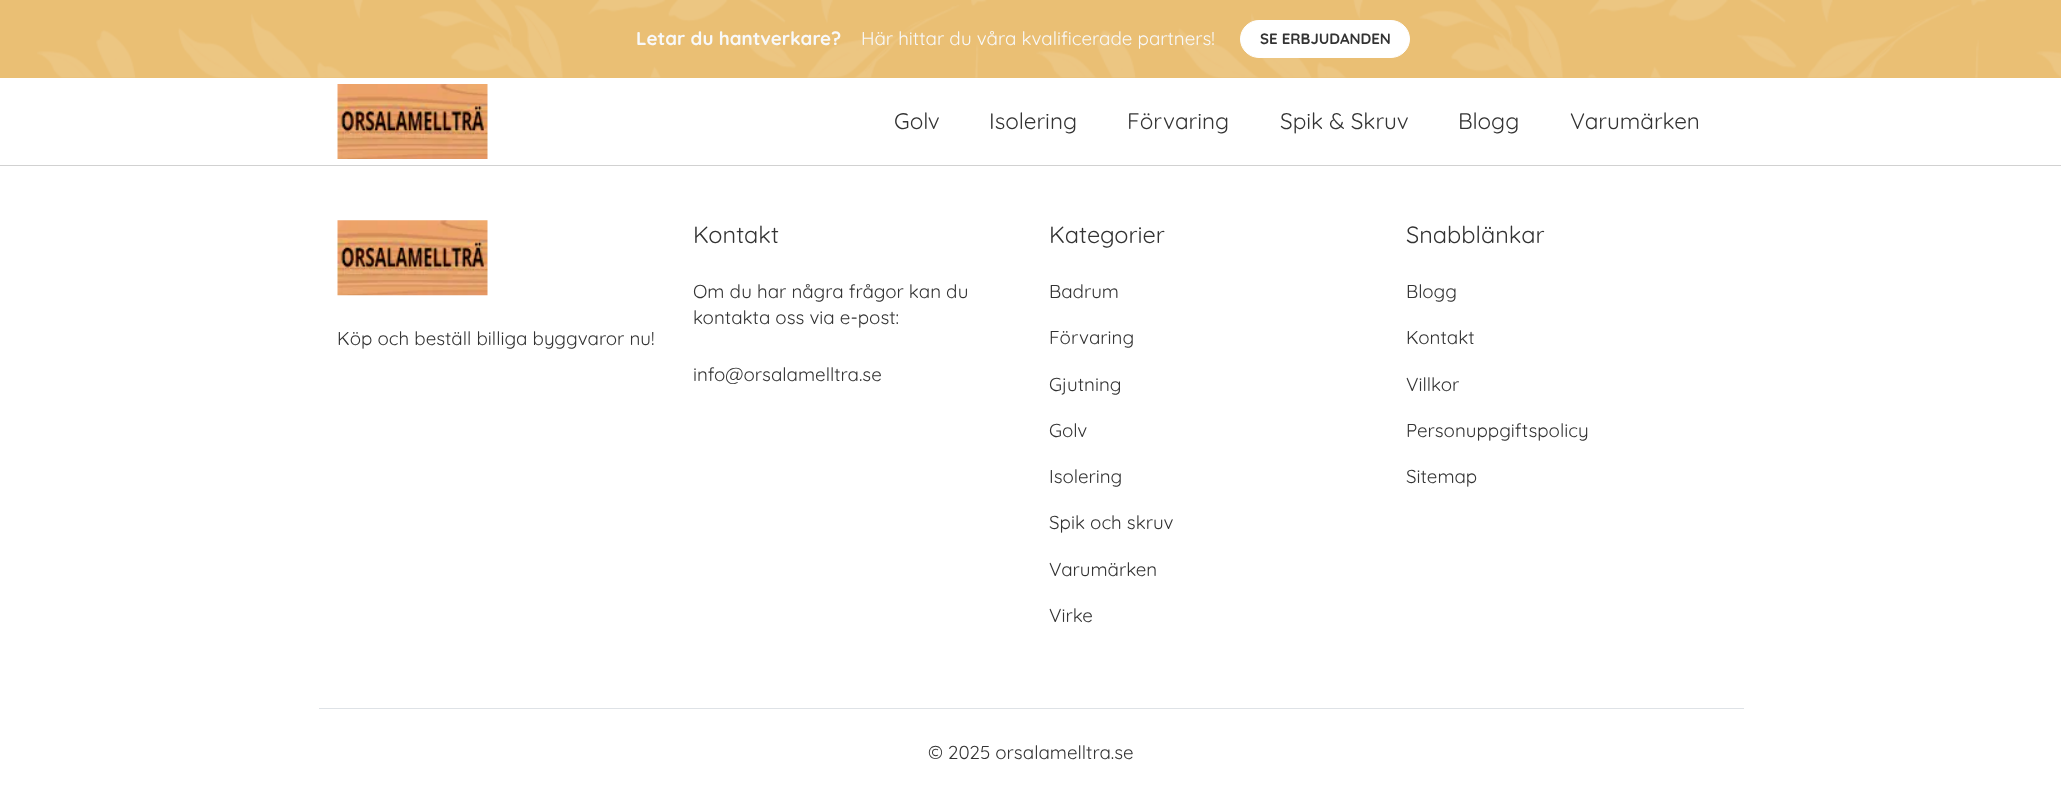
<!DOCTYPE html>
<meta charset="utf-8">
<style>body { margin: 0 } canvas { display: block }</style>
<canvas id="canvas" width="2061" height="795"></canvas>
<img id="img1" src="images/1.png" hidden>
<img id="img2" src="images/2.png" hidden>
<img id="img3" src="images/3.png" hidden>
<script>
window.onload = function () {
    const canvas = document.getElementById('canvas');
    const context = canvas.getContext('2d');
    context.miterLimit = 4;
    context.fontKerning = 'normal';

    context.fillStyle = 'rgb(255, 255, 255)';
    context.fillRect(0, 0, 2061, 795);
    context.fillStyle = 'rgb(209, 209, 209)';
    context.fillRect(0, 165, 2061, 1);
    context.fillStyle = 'rgb(234, 191, 116)';
    context.fillRect(0, 0, 37, 78);
    context.drawImage(document.getElementById('img1'), 37, 0, 2024, 78);
    context.fillStyle = 'rgb(255, 255, 255)';
    context.beginPath();
    context.roundRect(1240.5, 20.5, 169, 37, 18.5);
    context.fill();
    context.strokeStyle = 'rgb(255, 255, 255)';
    context.stroke();
    context.drawImage(document.getElementById('img2'), 337, 84, 151, 75);
    context.fillStyle = 'rgb(222, 226, 230)';
    context.fillRect(319, 708, 1425, 1);
    context.drawImage(document.getElementById('img3'), 337, 220, 151, 76);
    context.font = 'bold 18.75px Quicksand';
    context.fillStyle = 'rgb(248, 249, 250)';
    context.fillText('Letar du hantverkare?', 636, 45);
    context.font = '18.75px Quicksand';
    context.fillText('Här hittar du våra kvalificerade partners!', 861, 45);
    context.font = 'bold 15px Quicksand';
    context.fillStyle = 'rgb(51, 51, 51)';
    context.fillText('SE ERBJUDANDEN', 1260, 44);
    context.font = '22.5px Quicksand';
    context.fillText('Golv', 894, 129);
    context.fillText('Isolering', 989, 129);
    context.fillText('Förvaring', 1127, 129);
    context.fillText('Spik & Skruv', 1280, 129);
    context.fillText('Blogg', 1458, 129);
    context.fillText('Varumärken', 1570, 129);
    context.font = '18.75px Quicksand';
    context.fillText('Köp och beställ billiga byggvaror nu!', 337, 345);
    context.font = '23.5px Quicksand';
    context.fillText('Kontakt', 693, 243);
    context.font = '18.75px Quicksand';
    context.fillText('Om du har några frågor kan du', 693, 298);
    context.fillText('kontakta oss via e-post:', 693, 324);
    context.fillText('info@orsalamelltra.se', 693, 381);
    context.font = '23.5px Quicksand';
    context.fillText('Kategorier', 1049, 243);
    context.font = '18.75px Quicksand';
    context.fillText('Badrum', 1049, 298);
    context.fillText('Förvaring', 1049, 344);
    context.fillText('Gjutning', 1049, 391);
    context.fillText('Golv', 1049, 437);
    context.fillText('Isolering', 1049, 483);
    context.fillText('Spik och skruv', 1049, 529);
    context.fillText('Varumärken', 1049, 576);
    context.fillText('Virke', 1049, 622);
    context.font = '23.5px Quicksand';
    context.fillText('Snabblänkar', 1406, 243);
    context.font = '18.75px Quicksand';
    context.fillText('Blogg', 1406, 298);
    context.fillText('Kontakt', 1406, 344);
    context.fillText('Villkor', 1406, 391);
    context.fillText('Personuppgiftspolicy', 1406, 437);
    context.fillText('Sitemap', 1406, 483);
    context.fillText('© 2025 orsalamelltra.se', 928, 759);
};
</script>
